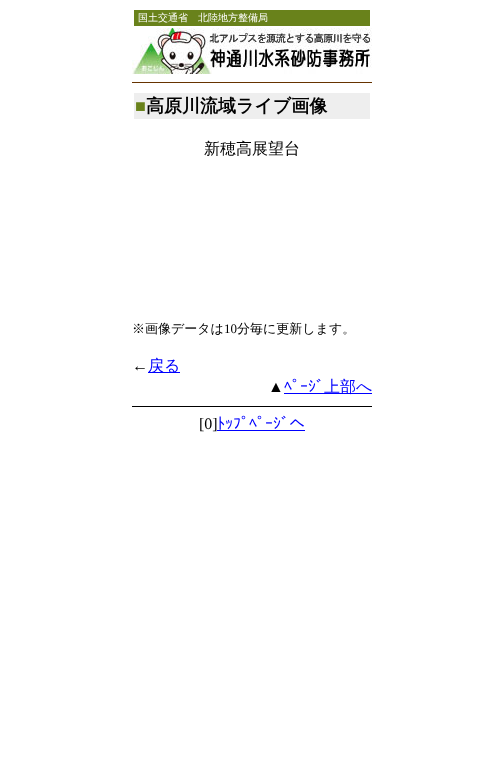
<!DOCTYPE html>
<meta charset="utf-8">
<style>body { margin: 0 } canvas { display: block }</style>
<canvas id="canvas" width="504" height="770"></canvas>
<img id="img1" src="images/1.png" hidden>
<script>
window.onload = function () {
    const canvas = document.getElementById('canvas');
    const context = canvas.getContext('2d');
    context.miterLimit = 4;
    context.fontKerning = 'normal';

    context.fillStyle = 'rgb(255, 255, 255)';
    context.fillRect(0, 0, 504, 770);
    context.fillStyle = 'rgb(105, 130, 27)';
    context.fillRect(134, 10, 236, 16);
    context.drawImage(document.getElementById('img1'), 132, 28, 240, 46);
    context.fillStyle = 'rgb(102, 51, 0)';
    context.fillRect(132, 82, 240, 1);
    context.fillStyle = 'rgb(238, 238, 238)';
    context.fillRect(134, 93, 236, 26);
    context.fillStyle = 'rgb(0, 0, 255)';
    context.fillRect(148, 372, 32, 1);
    context.fillRect(284, 393, 88, 1);
    context.fillStyle = 'rgb(0, 0, 0)';
    context.fillRect(132, 406, 240, 1);
    context.fillStyle = 'rgb(0, 0, 255)';
    context.fillRect(217, 430, 88, 1);
    context.font = '500 10px WenQuanYi Zen Hei';
    context.fillStyle = 'rgb(255, 255, 255)';
    context.fillText('国土交通省　北陸地方整備局', 138, 21);
    context.font = '18px Liberation Serif';
    context.fillStyle = 'rgb(105, 130, 27)';
    context.fillText('■', 135, 112);
    context.font = 'bold 18px WenQuanYi Zen Hei';
    context.fillStyle = 'rgb(0, 0, 0)';
    context.fillText('高原川流域ライブ画像', 146, 112);
    context.font = '500 16px WenQuanYi Zen Hei';
    context.fillText('新穂高展望台', 204, 154);
    context.font = '500 13px WenQuanYi Zen Hei';
    context.fillText('※画像データは', 132, 333);
    context.font = '13px Liberation Serif';
    context.fillText('10', 224, 333);
    context.font = '500 13px WenQuanYi Zen Hei';
    context.fillText('分毎に更新します。', 237, 333);
    context.font = '16px Liberation Serif';
    context.fillText('←', 132, 371);
    context.font = '500 16px WenQuanYi Zen Hei';
    context.fillStyle = 'rgb(0, 0, 255)';
    context.fillText('戻る', 148, 371);
    context.font = '16px Liberation Serif';
    context.fillStyle = 'rgb(0, 0, 0)';
    context.fillText('▲', 268, 392);
    context.font = '16px IPAGothic';
    context.fillStyle = 'rgb(0, 0, 255)';
    context.fillText('ﾍﾟｰｼﾞ', 284, 392);
    context.font = '500 16px WenQuanYi Zen Hei';
    context.fillText('上部へ', 324, 392);
    context.font = '16px Liberation Serif';
    context.fillStyle = 'rgb(0, 0, 0)';
    context.fillText('[0]', 199, 429);
    context.font = '16px IPAGothic';
    context.fillStyle = 'rgb(0, 0, 255)';
    context.fillText('ﾄｯﾌﾟﾍﾟｰｼﾞへ', 217, 429);
};
</script>
